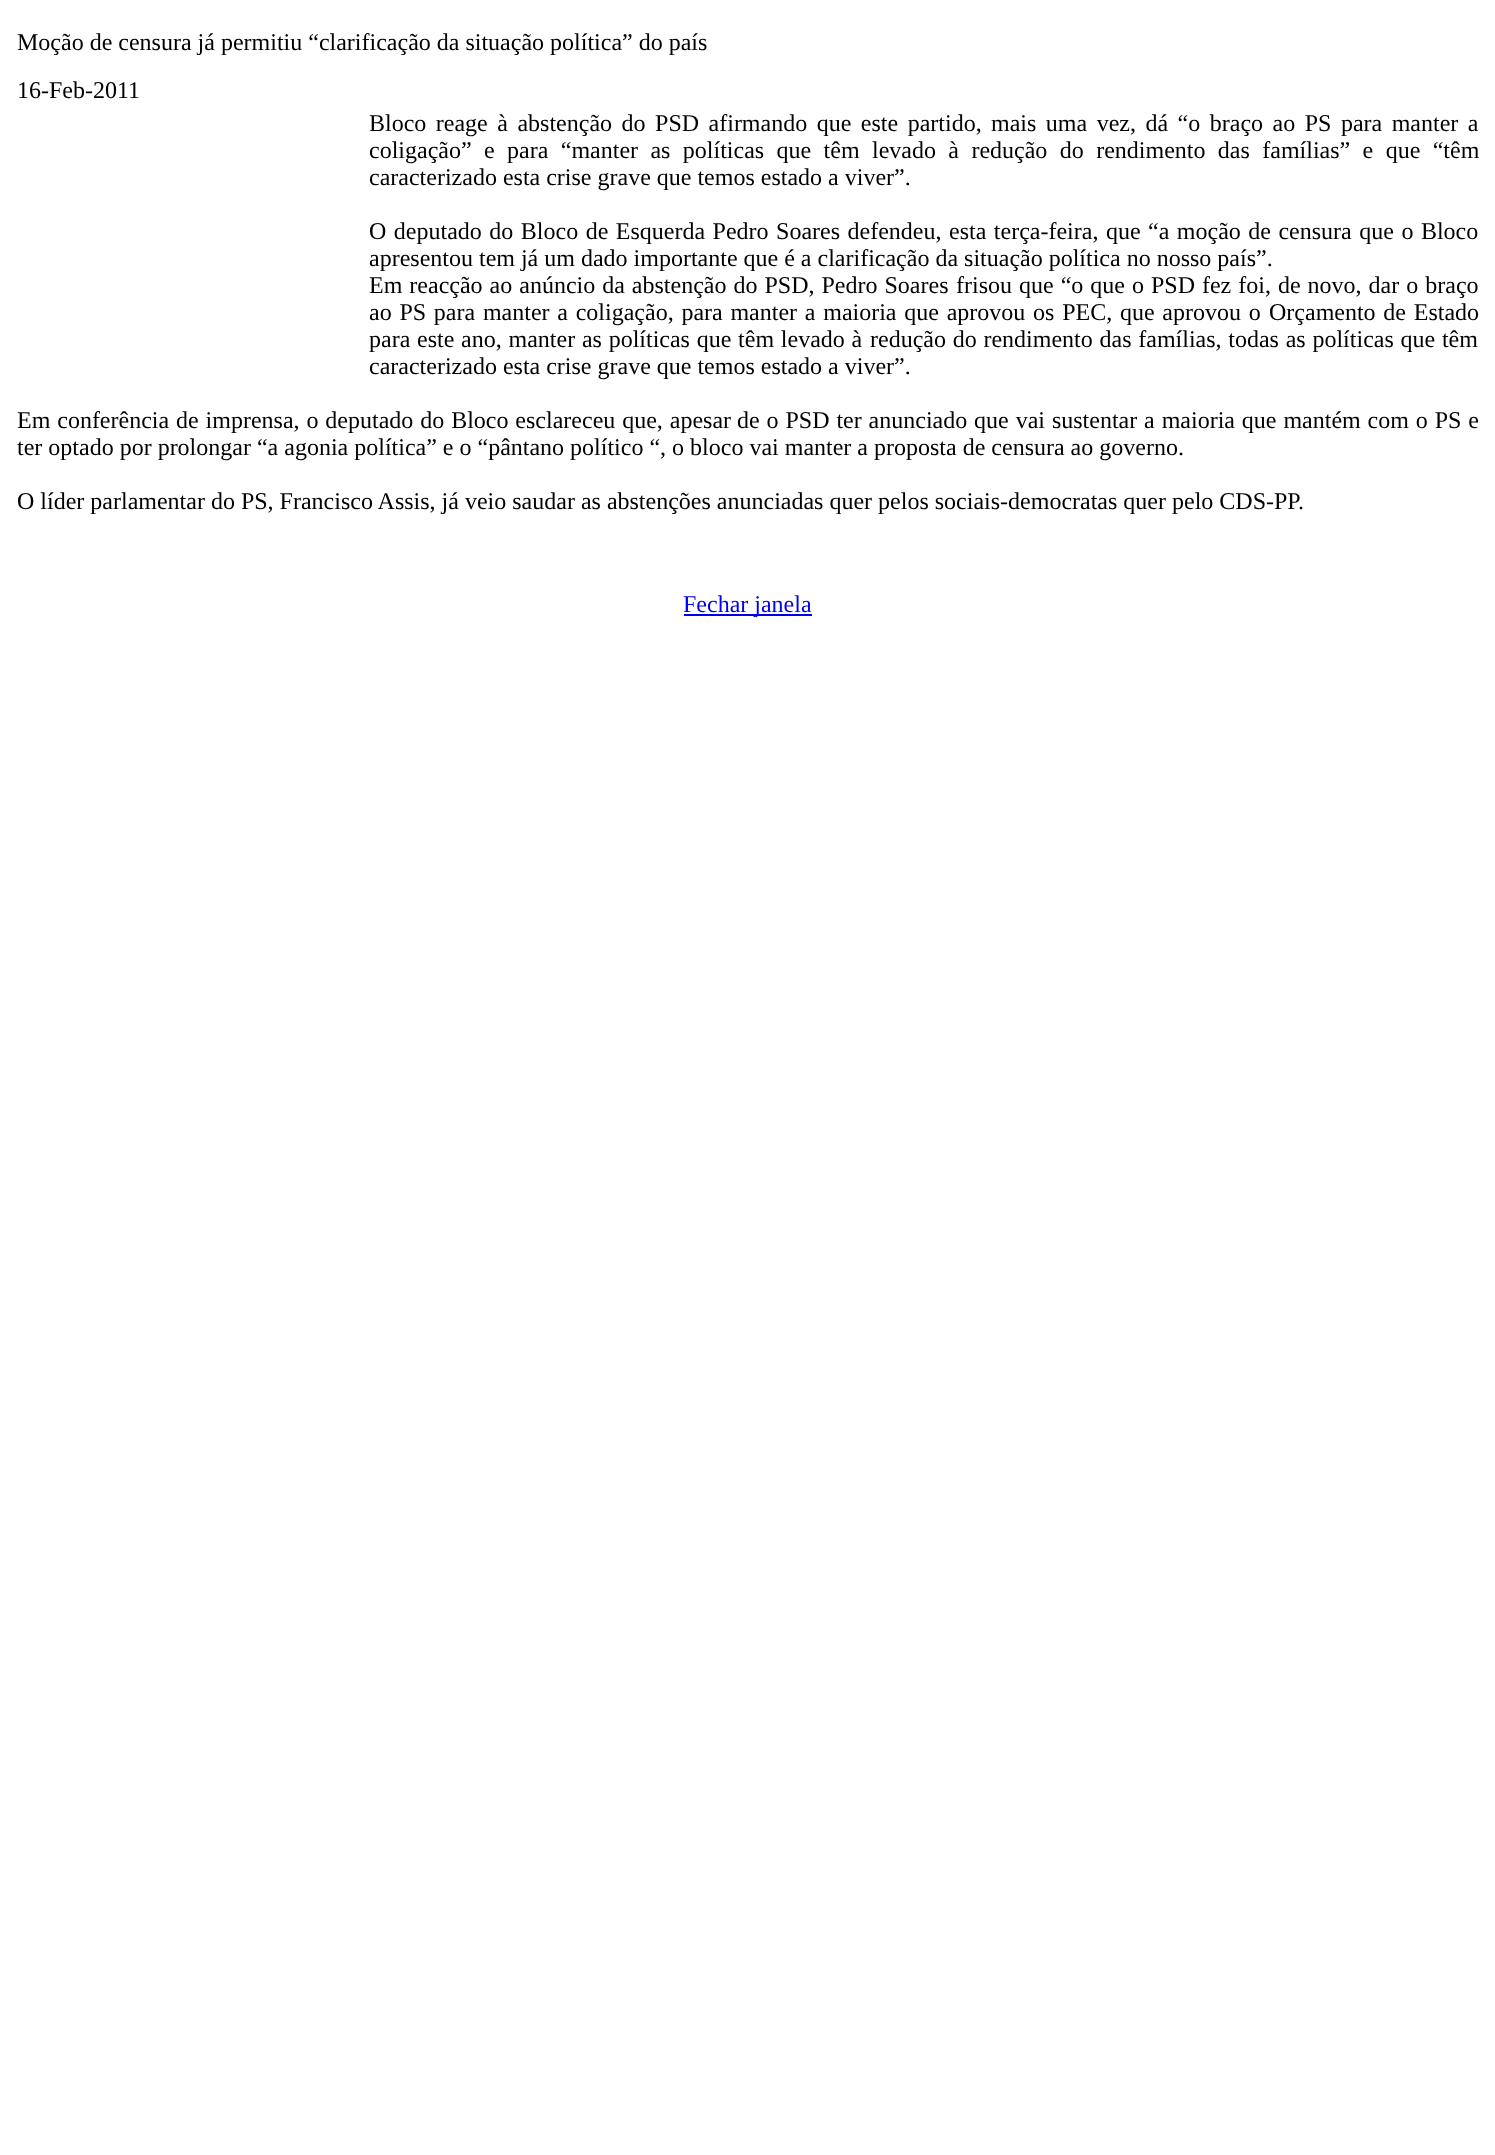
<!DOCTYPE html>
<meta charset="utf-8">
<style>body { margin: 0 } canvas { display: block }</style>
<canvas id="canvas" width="1495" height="2155"></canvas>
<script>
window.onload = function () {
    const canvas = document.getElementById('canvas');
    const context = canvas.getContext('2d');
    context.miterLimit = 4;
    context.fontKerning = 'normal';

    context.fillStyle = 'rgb(255, 255, 255)';
    context.fillRect(0, 0, 1495, 2155);
    context.fillStyle = 'rgb(0, 0, 238)';
    context.fillRect(684, 614, 128, 2);
    context.font = '24px Liberation Serif';
    context.fillStyle = 'rgb(0, 0, 0)';
    context.fillText('Moção de censura já permitiu “clarificação da situação política” do país', 17, 50);
    context.fillText('16-Feb-2011', 17, 98);
    context.fillText('B', 369, 131);
    context.wordSpacing = '3.5px';
    context.fillText('loco reage à abstenção do PSD afirmando que este partido,', 385, 131);
    context.fillText('mais uma vez, dá “o braço ao PS para manter a', 991, 131);
    context.wordSpacing = '6.4px';
    context.fillText('coligação” e para “manter as políticas que têm levado à redução do rendimento das famílias” e que “têm', 369, 158);
    context.wordSpacing = '0px';
    context.fillText('caracterizado esta crise grave que temos estado a viver”.', 369, 185);
    context.wordSpacing = '1.5px';
    context.fillText('O deputado do Bloco de Esquerda Pedro Soares defendeu, esta terça-feira, que “a moção de censura que o Bloco', 369, 239);
    context.wordSpacing = '0px';
    context.fillText('apresentou tem já um dado importante que é a clarificação da situação política no nosso país”.', 369, 266);
    context.wordSpacing = '1px';
    context.fillText('Em reacção ao anúncio da abstenção do PSD, Pedro Soares', 369, 293);
    context.fillText('frisou que “o que o PSD fez foi, de novo, dar o braço', 956, 293);
    context.wordSpacing = '1.75px';
    context.fillText('ao PS para manter a coligação, para manter a maioria que aprovou os PEC, que aprovou o', 369, 320);
    context.fillText('Orçamento de Estado', 1269, 320);
    context.wordSpacing = '0.75px';
    context.fillText('para este ano, manter as políticas que têm levado à', 369, 347);
    context.fillText('redução do rendimento das famílias, todas as políticas que têm', 870, 347);
    context.wordSpacing = '0px';
    context.fillText('caracterizado esta crise grave que temos estado a viver”.', 369, 374);
    context.wordSpacing = '0.9px';
    context.fillText('Em conferência de imprensa, o deputado do Bloco esclareceu que, apesar', 17, 428);
    context.fillText('de o PSD ter anunciado que vai sustentar a maioria que mantém com o PS e', 737, 428);
    context.wordSpacing = '0px';
    context.fillText('ter optado por prolongar “a agonia política” e o “pântano político “, o bloco vai manter a proposta de censura ao governo.', 17, 455);
    context.fillText('O líder parlamentar do PS, Francisco Assis, já veio saudar as abstenções anunciadas quer pelos sociais-democratas quer pelo CDS-PP.', 17, 509);
    context.fillStyle = 'rgb(0, 0, 238)';
    context.fillText('Fechar janela', 683, 612);
};
</script>
